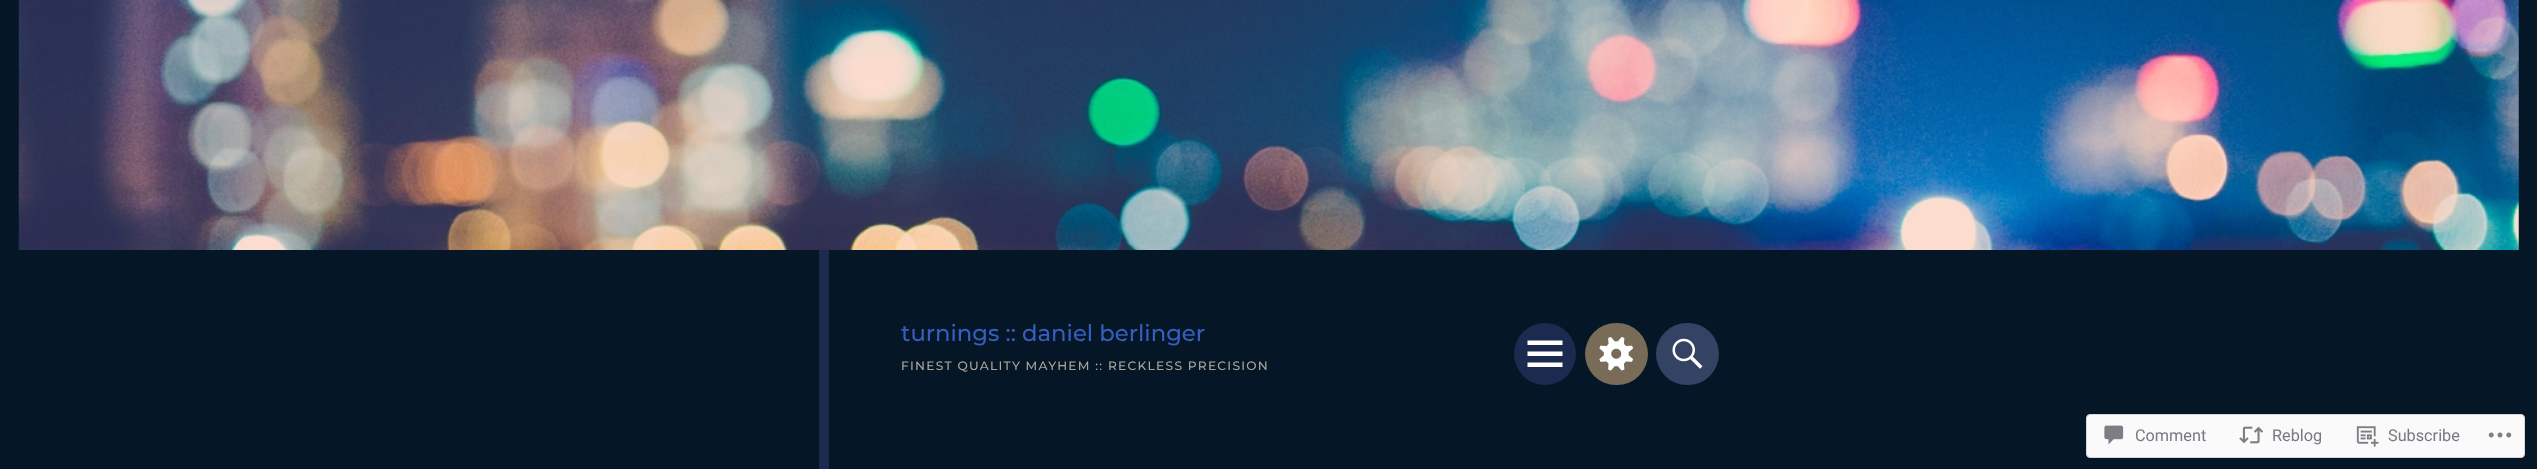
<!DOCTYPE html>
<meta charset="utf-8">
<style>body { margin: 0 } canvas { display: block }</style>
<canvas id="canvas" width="2537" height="469"></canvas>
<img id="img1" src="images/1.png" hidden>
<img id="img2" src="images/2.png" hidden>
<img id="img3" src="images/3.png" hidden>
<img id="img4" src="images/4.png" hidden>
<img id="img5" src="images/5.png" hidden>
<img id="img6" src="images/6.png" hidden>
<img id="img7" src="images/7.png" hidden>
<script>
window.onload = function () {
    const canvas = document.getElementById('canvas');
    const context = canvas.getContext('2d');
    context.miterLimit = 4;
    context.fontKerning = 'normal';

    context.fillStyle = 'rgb(5, 22, 38)';
    context.fillRect(0, 0, 2537, 469);
    context.drawImage(document.getElementById('img1'), 18, 0, 2501, 250);
    context.fillStyle = 'rgb(26, 43, 79)';
    context.fillRect(819, 250, 10, 219);
    context.beginPath();
    context.arc(1545, 354, 31, 0, 2 * Math.PI);
    context.fill();
    context.fillStyle = 'rgb(255, 255, 255)';
    context.beginPath();
    context.moveTo(1527.5, 367);
    context.lineTo(1527.5, 362.5);
    context.lineTo(1562.5, 362.5);
    context.lineTo(1562.5, 367);
    context.closePath();
    context.moveTo(1527.5, 340.5);
    context.lineTo(1562.5, 340.5);
    context.lineTo(1562.5, 345);
    context.lineTo(1527.5, 345);
    context.closePath();
    context.moveTo(1527.5, 356);
    context.lineTo(1527.5, 351.5);
    context.lineTo(1562.5, 351.5);
    context.lineTo(1562.5, 356);
    context.closePath();
    context.fill();
    context.fillStyle = 'rgb(120, 108, 89)';
    context.beginPath();
    context.roundRect(1585, 323, 63, 62, 31);
    context.fill();
    context.drawImage(document.getElementById('img2'), 1599, 336, 35, 35);
    context.fillStyle = 'rgb(52, 67, 99)';
    context.beginPath();
    context.roundRect(1656, 323, 63, 62, 31);
    context.fill();
    context.drawImage(document.getElementById('img3'), 1672, 338, 31, 31);
    context.fillStyle = 'rgb(250, 250, 251)';
    context.beginPath();
    context.roundRect(2086.5, 414.5, 438, 43, 3.5);
    context.fill();
    context.strokeStyle = 'rgb(216, 216, 218)';
    context.stroke();
    context.drawImage(document.getElementById('img4'), 2104, 425, 20, 20);
    context.drawImage(document.getElementById('img5'), 2239, 426, 25, 18);
    context.drawImage(document.getElementById('img6'), 2356, 426, 23, 21);
    context.drawImage(document.getElementById('img7'), 2488, 432, 24, 6);
    context.font = '500 22.75px Montserrat';
    context.fillStyle = 'rgb(53, 94, 190)';
    context.fillText('turnings :: daniel berlinger', 901, 341);
    context.letterSpacing = '1.25px';
    context.font = '500 12.25px Montserrat';
    context.fillStyle = 'rgb(173, 167, 155)';
    context.fillText('FINEST QUALITY MAYHEM :: RECKLESS PRECISION', 901, 370);
    context.letterSpacing = '0px';
    context.font = '16.25px Roboto';
    context.fillStyle = 'rgb(118, 122, 128)';
    context.fillText('Comment', 2135, 441);
    context.fillText('Reblog', 2272, 441);
    context.fillText('Subscribe', 2388, 441);
};
</script>
